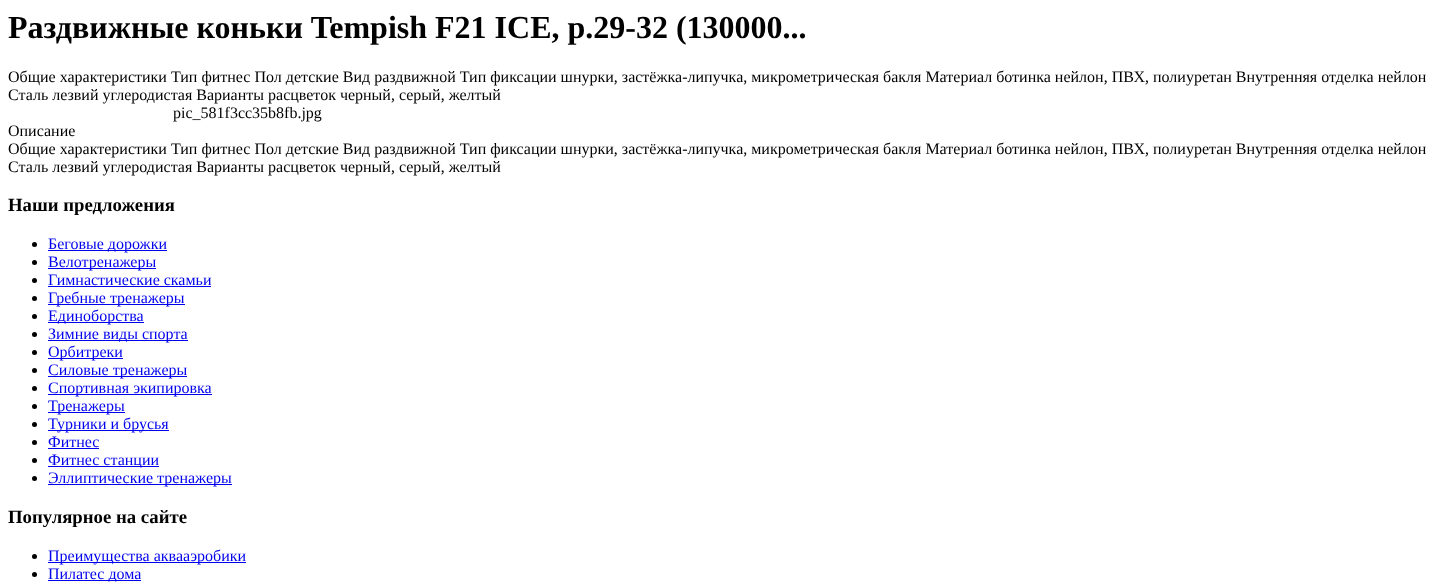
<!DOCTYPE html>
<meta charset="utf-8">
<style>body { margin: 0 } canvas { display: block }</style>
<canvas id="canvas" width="1455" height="584"></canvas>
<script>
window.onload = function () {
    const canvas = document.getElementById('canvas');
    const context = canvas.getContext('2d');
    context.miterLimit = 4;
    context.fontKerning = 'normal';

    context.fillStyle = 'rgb(255, 255, 255)';
    context.fillRect(0, 0, 1455, 584);
    context.fillStyle = 'rgb(0, 0, 0)';
    context.beginPath();
    context.arc(34.5, 244.5, 2.5, 0, 2 * Math.PI);
    context.fill();
    context.fillStyle = 'rgb(0, 0, 238)';
    context.fillRect(48, 250, 119, 1);
    context.fillStyle = 'rgb(0, 0, 0)';
    context.beginPath();
    context.arc(34.5, 262.5, 2.5, 0, 2 * Math.PI);
    context.fill();
    context.fillStyle = 'rgb(0, 0, 238)';
    context.fillRect(48, 268, 108, 1);
    context.fillStyle = 'rgb(0, 0, 0)';
    context.beginPath();
    context.arc(34.5, 280.5, 2.5, 0, 2 * Math.PI);
    context.fill();
    context.fillStyle = 'rgb(0, 0, 238)';
    context.fillRect(48, 286, 163, 1);
    context.fillStyle = 'rgb(0, 0, 0)';
    context.beginPath();
    context.arc(34.5, 298.5, 2.5, 0, 2 * Math.PI);
    context.fill();
    context.fillStyle = 'rgb(0, 0, 238)';
    context.fillRect(48, 304, 137, 1);
    context.fillStyle = 'rgb(0, 0, 0)';
    context.beginPath();
    context.arc(34.5, 316.5, 2.5, 0, 2 * Math.PI);
    context.fill();
    context.fillStyle = 'rgb(0, 0, 238)';
    context.fillRect(48, 322, 96, 1);
    context.fillStyle = 'rgb(0, 0, 0)';
    context.beginPath();
    context.arc(34.5, 334.5, 2.5, 0, 2 * Math.PI);
    context.fill();
    context.fillStyle = 'rgb(0, 0, 238)';
    context.fillRect(48, 340, 140, 1);
    context.fillStyle = 'rgb(0, 0, 0)';
    context.beginPath();
    context.arc(34.5, 352.5, 2.5, 0, 2 * Math.PI);
    context.fill();
    context.fillStyle = 'rgb(0, 0, 238)';
    context.fillRect(48, 358, 75, 1);
    context.fillStyle = 'rgb(0, 0, 0)';
    context.beginPath();
    context.arc(34.5, 370.5, 2.5, 0, 2 * Math.PI);
    context.fill();
    context.fillStyle = 'rgb(0, 0, 238)';
    context.fillRect(48, 376, 139, 1);
    context.fillStyle = 'rgb(0, 0, 0)';
    context.beginPath();
    context.arc(34.5, 388.5, 2.5, 0, 2 * Math.PI);
    context.fill();
    context.fillStyle = 'rgb(0, 0, 238)';
    context.fillRect(48, 394, 164, 1);
    context.fillStyle = 'rgb(0, 0, 0)';
    context.beginPath();
    context.arc(34.5, 406.5, 2.5, 0, 2 * Math.PI);
    context.fill();
    context.fillStyle = 'rgb(0, 0, 238)';
    context.fillRect(48, 412, 77, 1);
    context.fillStyle = 'rgb(0, 0, 0)';
    context.beginPath();
    context.arc(34.5, 424.5, 2.5, 0, 2 * Math.PI);
    context.fill();
    context.fillStyle = 'rgb(0, 0, 238)';
    context.fillRect(48, 430, 121, 1);
    context.fillStyle = 'rgb(0, 0, 0)';
    context.beginPath();
    context.arc(34.5, 442.5, 2.5, 0, 2 * Math.PI);
    context.fill();
    context.fillStyle = 'rgb(0, 0, 238)';
    context.fillRect(48, 448, 51, 1);
    context.fillStyle = 'rgb(0, 0, 0)';
    context.beginPath();
    context.arc(34.5, 460.5, 2.5, 0, 2 * Math.PI);
    context.fill();
    context.fillStyle = 'rgb(0, 0, 238)';
    context.fillRect(48, 466, 111, 1);
    context.fillStyle = 'rgb(0, 0, 0)';
    context.beginPath();
    context.arc(34.5, 478.5, 2.5, 0, 2 * Math.PI);
    context.fill();
    context.fillStyle = 'rgb(0, 0, 238)';
    context.fillRect(48, 484, 184, 1);
    context.fillStyle = 'rgb(0, 0, 0)';
    context.beginPath();
    context.arc(34.5, 556.5, 2.5, 0, 2 * Math.PI);
    context.fill();
    context.fillStyle = 'rgb(0, 0, 238)';
    context.fillRect(48, 562, 198, 1);
    context.fillStyle = 'rgb(0, 0, 0)';
    context.beginPath();
    context.arc(34.5, 574.5, 2.5, 0, 2 * Math.PI);
    context.fill();
    context.fillStyle = 'rgb(0, 0, 238)';
    context.fillRect(48, 580, 93, 1);
    context.font = 'bold 32px Liberation Serif';
    context.fillStyle = 'rgb(0, 0, 0)';
    context.fillText('Раздвижные коньки Tempish F21 ICE, р.29-32 (130000...', 8, 38);
    context.font = '16px Liberation Serif';
    context.fillText('Общие характеристики Тип фитнес Пол детские Вид раздвижной Тип фиксации шнурки, застёжка-липучка, микрометрическая бакля Материал ботинка нейлон, ПВХ, полиуретан Внутренняя отделка нейлон', 8, 82);
    context.fillText('Сталь лезвий углеродистая Варианты расцветок черный, серый, желтый', 8, 100);
    context.fillText('pic_581f3cc35b8fb.jpg', 173, 118);
    context.fillText('Описание', 8, 136);
    context.fillText('Общие характеристики Тип фитнес Пол детские Вид раздвижной Тип фиксации шнурки, застёжка-липучка, микрометрическая бакля Материал ботинка нейлон, ПВХ, полиуретан Внутренняя отделка нейлон', 8, 154);
    context.fillText('Сталь лезвий углеродистая Варианты расцветок черный, серый, желтый', 8, 172);
    context.font = 'bold 18.75px Liberation Serif';
    context.fillText('Наши предложения', 8, 211);
    context.font = '16px Liberation Serif';
    context.fillStyle = 'rgb(0, 0, 238)';
    context.fillText('Беговые дорожки', 48, 249);
    context.fillText('Велотренажеры', 48, 267);
    context.fillText('Гимнастические скамьи', 48, 285);
    context.fillText('Гребные тренажеры', 48, 303);
    context.fillText('Единоборства', 48, 321);
    context.fillText('Зимние виды спорта', 48, 339);
    context.fillText('Орбитреки', 48, 357);
    context.fillText('Силовые тренажеры', 48, 375);
    context.fillText('Спортивная экипировка', 48, 393);
    context.fillText('Тренажеры', 48, 411);
    context.fillText('Турники и брусья', 48, 429);
    context.fillText('Фитнес', 48, 447);
    context.fillText('Фитнес станции', 48, 465);
    context.fillText('Эллиптические тренажеры', 48, 483);
    context.font = 'bold 18.75px Liberation Serif';
    context.fillStyle = 'rgb(0, 0, 0)';
    context.fillText('Популярное на сайте', 8, 523);
    context.font = '16px Liberation Serif';
    context.fillStyle = 'rgb(0, 0, 238)';
    context.fillText('Преимущества аквааэробики', 48, 561);
    context.fillText('Пилатес дома', 48, 579);
};
</script>
